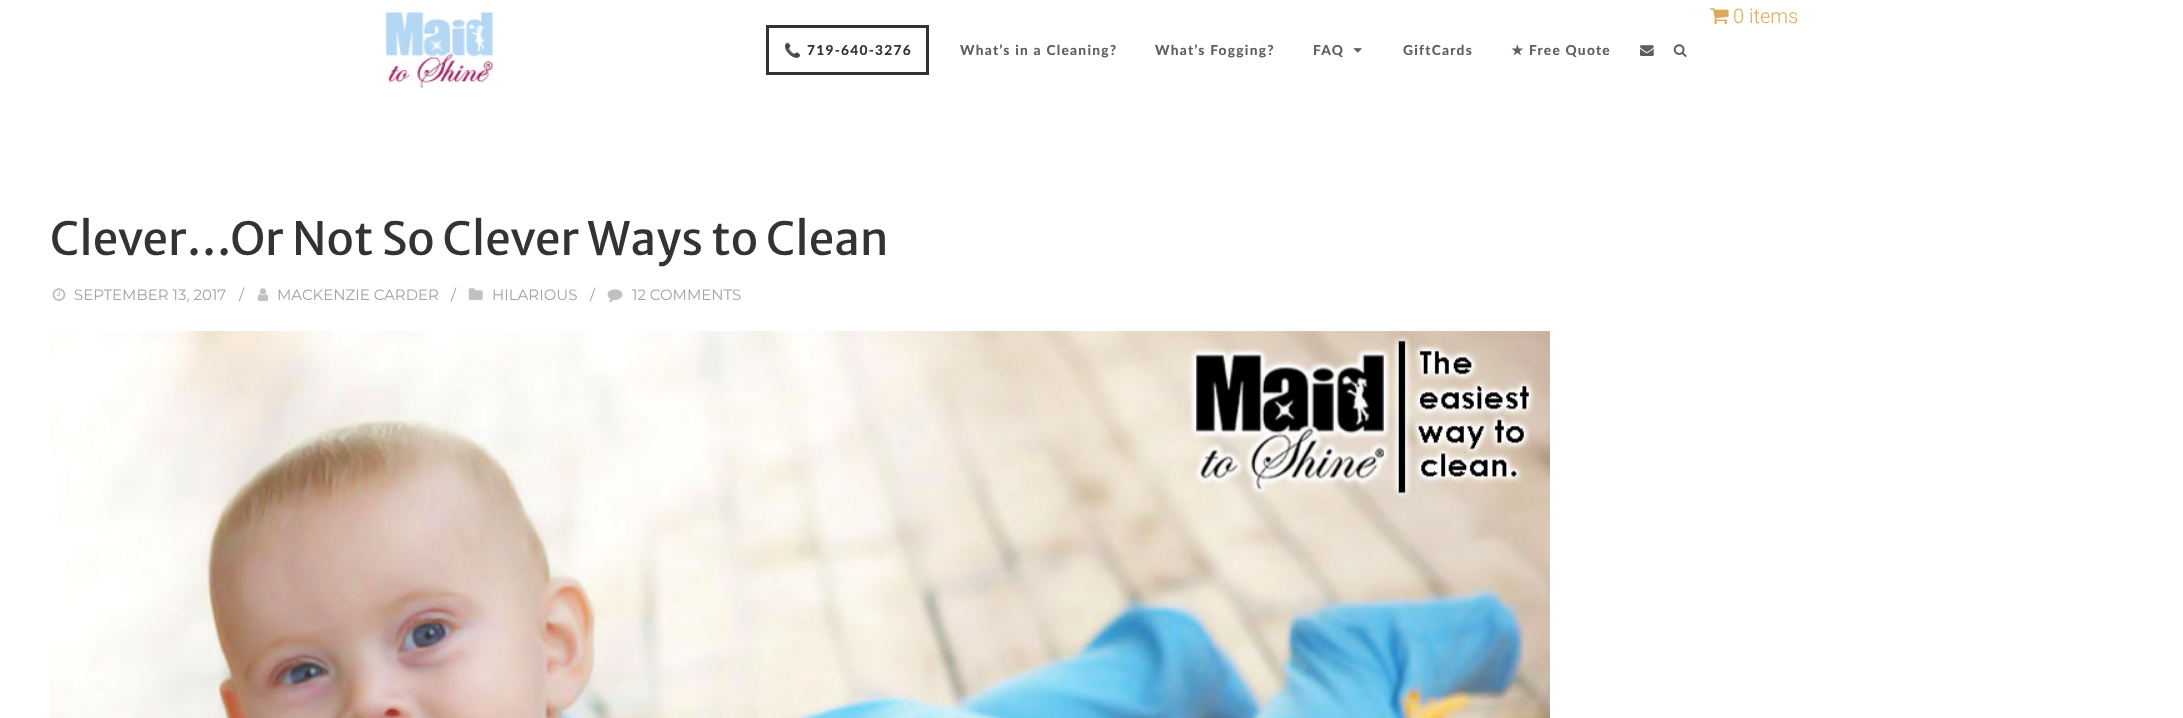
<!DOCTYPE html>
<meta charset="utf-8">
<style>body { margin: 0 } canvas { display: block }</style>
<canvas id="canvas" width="2183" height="718"></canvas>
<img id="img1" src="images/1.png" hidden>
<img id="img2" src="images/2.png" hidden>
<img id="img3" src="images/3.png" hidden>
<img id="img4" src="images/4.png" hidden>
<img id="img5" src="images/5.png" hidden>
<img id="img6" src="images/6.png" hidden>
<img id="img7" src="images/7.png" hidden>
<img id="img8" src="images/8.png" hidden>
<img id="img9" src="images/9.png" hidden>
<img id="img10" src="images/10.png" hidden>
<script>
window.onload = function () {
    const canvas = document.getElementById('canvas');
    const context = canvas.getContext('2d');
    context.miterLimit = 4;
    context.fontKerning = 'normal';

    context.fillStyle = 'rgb(255, 255, 255)';
    context.fillRect(0, 0, 2183, 718);
    context.drawImage(document.getElementById('img1'), 386, 12, 107, 76);
    context.drawImage(document.getElementById('img2'), 1710, 8, 19, 16);
    context.strokeStyle = 'rgb(51, 51, 51)';
    context.lineWidth = 3;
    context.strokeRect(767.5, 26.5, 160, 47);
    context.drawImage(document.getElementById('img3'), 1353, 48, 9, 5);
    context.drawImage(document.getElementById('img4'), 1640, 45, 14, 11);
    context.drawImage(document.getElementById('img5'), 1673, 44, 14, 13);
    context.drawImage(document.getElementById('img6'), 52, 288, 14, 13);
    context.drawImage(document.getElementById('img7'), 257, 288, 12, 14);
    context.drawImage(document.getElementById('img8'), 468, 288, 15, 12);
    context.drawImage(document.getElementById('img9'), 607, 289, 16, 13);
    context.drawImage(document.getElementById('img10'), 50, 331, 1500, 387);
    context.font = '300 20px Roboto';
    context.fillStyle = 'rgb(221, 170, 93)';
    context.fillText('0 items', 1733, 23);
    context.letterSpacing = '1.25px';
    context.font = 'bold 13.75px Noto Color Emoji';
    context.fillStyle = 'rgb(51, 51, 51)';
    context.fillText('📞', 784, 55);
    context.font = '900 13.75px Lato';
    context.fillText('719-640-3276', 807, 55);
    context.fillStyle = 'rgb(95, 95, 95)';
    context.fillText('What’s in a Cleaning?', 960, 55);
    context.fillText('What’s Fogging?', 1155, 55);
    context.fillText('FAQ', 1313, 55);
    context.fillText('GiftCards', 1403, 55);
    context.font = 'bold 13.75px DejaVu Sans';
    context.fillText('★', 1511, 55);
    context.font = '900 13.75px Lato';
    context.fillText('Free Quote', 1529, 55);
    context.letterSpacing = '0px';
    context.font = '45.75px Merriweather Sans';
    context.fillStyle = 'rgb(51, 51, 51)';
    context.fillText('Clever…Or Not So Clever Ways to Clean', 50, 255);
    context.font = '15px Montserrat';
    context.fillStyle = 'rgb(163, 163, 163)';
    context.fillText('SEPTEMBER 13, 2017', 74, 300);
    context.fillText('/', 239, 300);
    context.fillText('MACKENZIE CARDER', 277, 300);
    context.fillText('/', 451, 300);
    context.fillText('HILARIOUS', 492, 300);
    context.fillText('/', 590, 300);
    context.fillText('12 COMMENTS', 632, 300);
};
</script>
